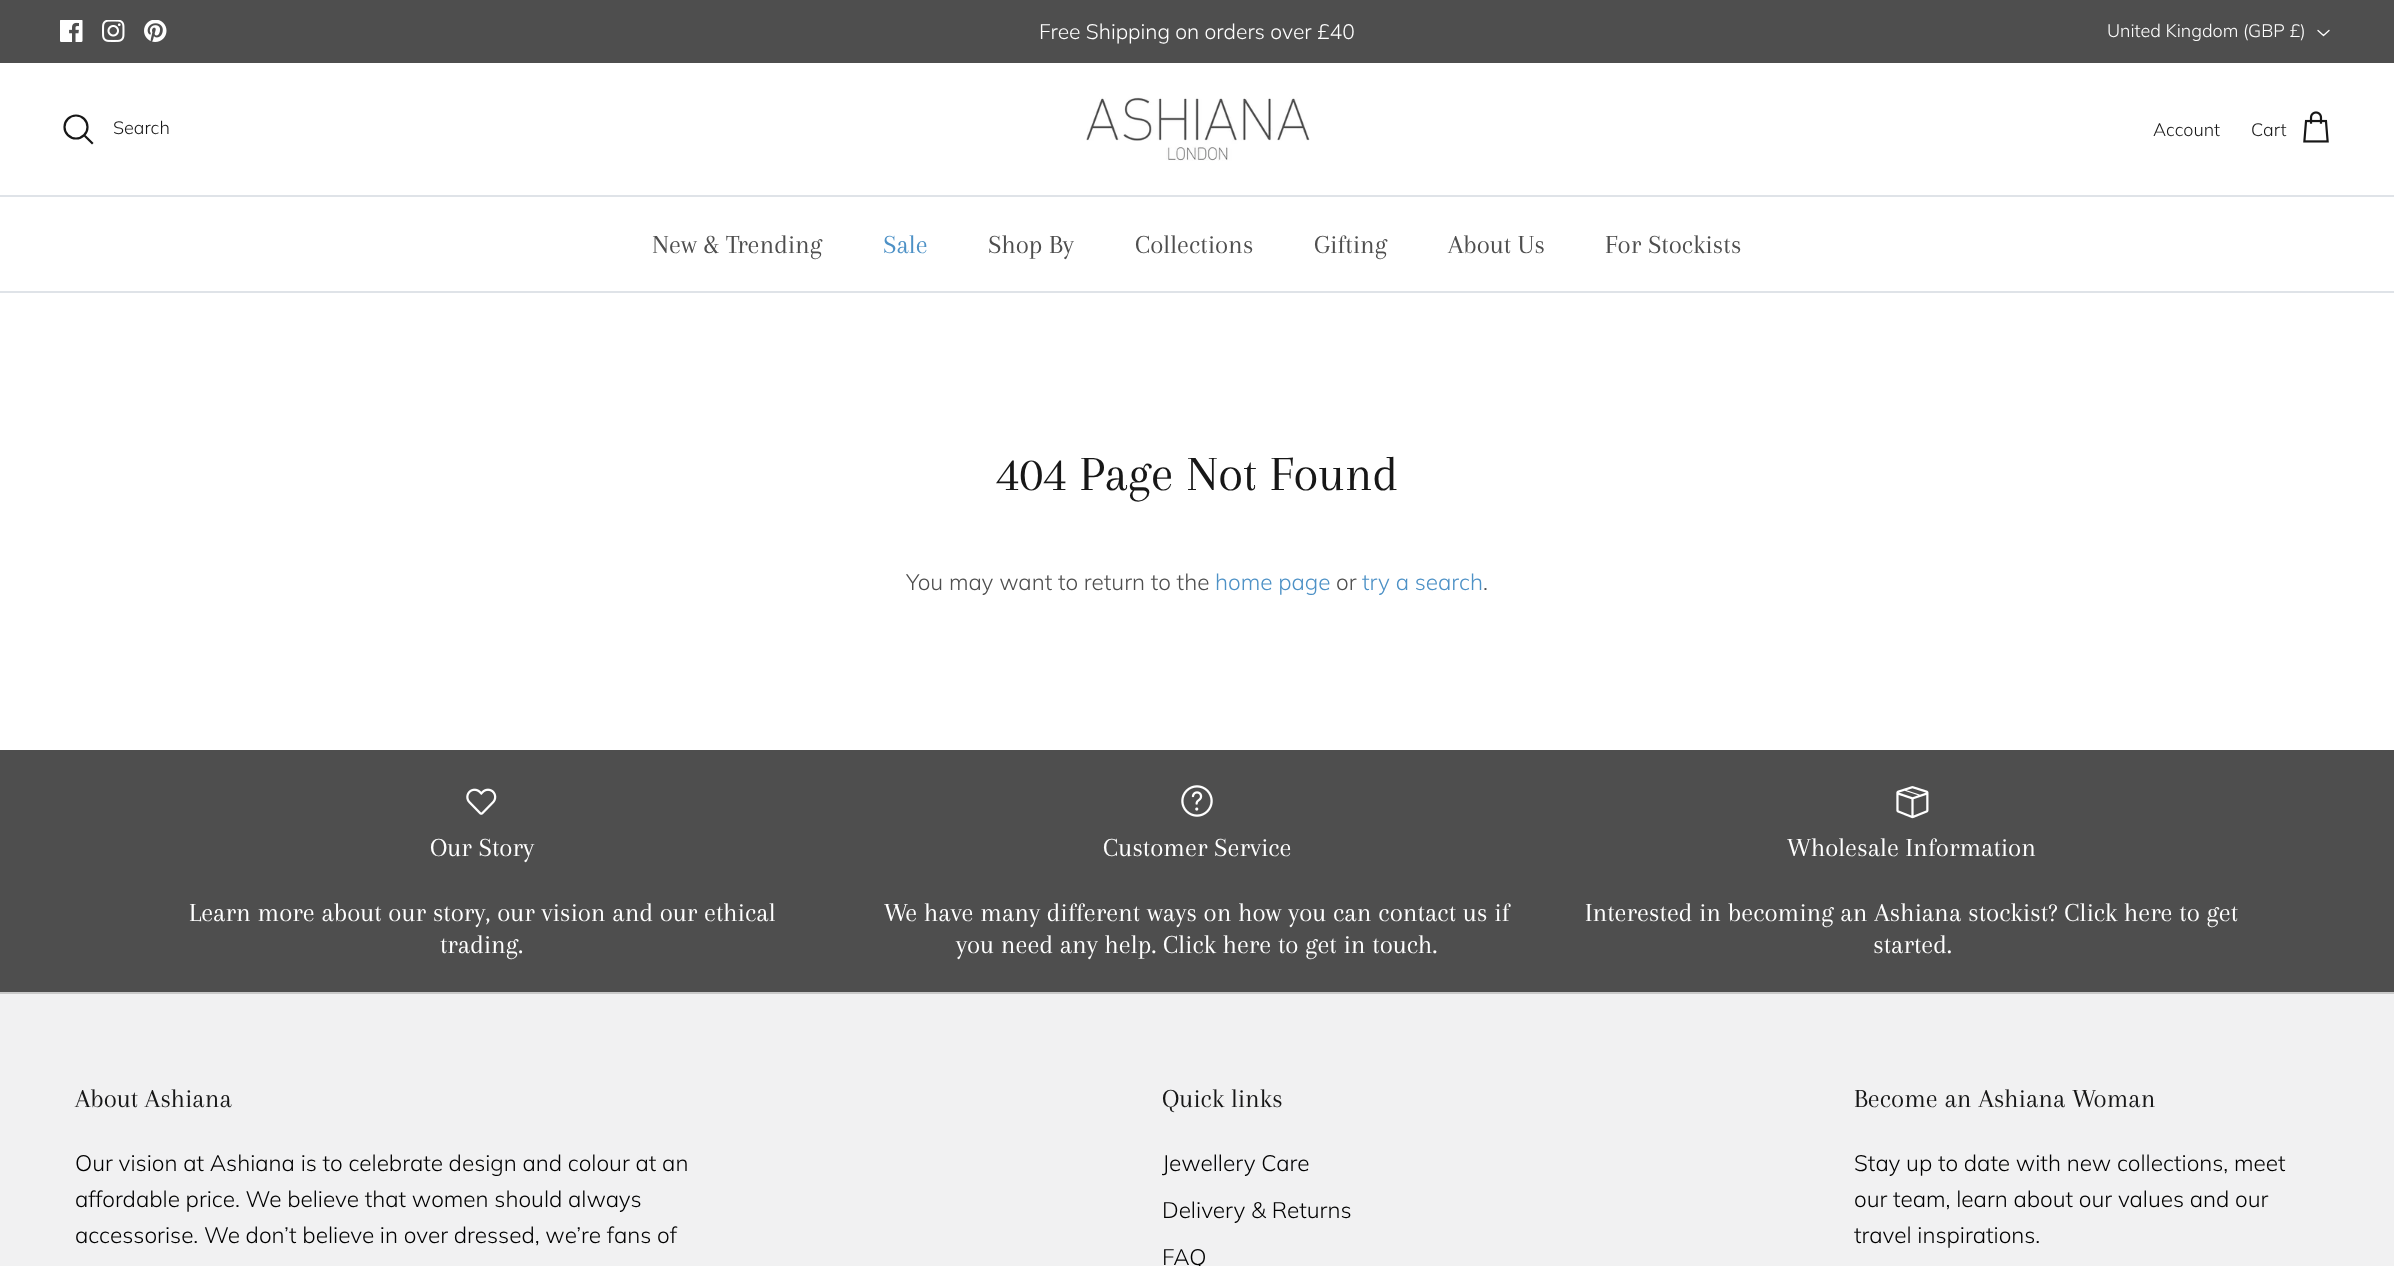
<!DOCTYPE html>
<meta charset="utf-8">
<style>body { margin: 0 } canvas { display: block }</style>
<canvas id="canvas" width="2394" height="1266"></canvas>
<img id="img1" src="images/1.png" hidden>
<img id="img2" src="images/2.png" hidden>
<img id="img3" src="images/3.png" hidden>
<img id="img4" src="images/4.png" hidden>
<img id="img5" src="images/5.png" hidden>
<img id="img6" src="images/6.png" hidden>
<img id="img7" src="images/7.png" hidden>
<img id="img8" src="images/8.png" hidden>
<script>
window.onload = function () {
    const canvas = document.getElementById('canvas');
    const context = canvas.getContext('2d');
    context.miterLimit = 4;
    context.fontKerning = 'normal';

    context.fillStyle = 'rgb(255, 255, 255)';
    context.fillRect(0, 0, 2394, 1266);
    context.fillStyle = 'rgb(78, 78, 78)';
    context.fillRect(0, 0, 2394, 63);
    context.drawImage(document.getElementById('img1'), 60, 20, 23, 22);
    context.drawImage(document.getElementById('img2'), 102, 20, 23, 22);
    context.drawImage(document.getElementById('img3'), 144, 20, 23, 22);
    context.beginPath();
    context.moveTo(2318, 30.5);
    context.lineTo(2323.5, 35.5);
    context.lineTo(2329, 30.5);
    context.strokeStyle = 'rgb(255, 255, 255)';
    context.lineWidth = 1.3;
    context.lineCap = 'round';
    context.lineJoin = 'round';
    context.stroke();
    context.fillStyle = 'rgb(223, 227, 232)';
    context.fillRect(0, 195, 2394, 2);
    context.beginPath();
    context.arc(76, 127, 11.5, 0, 2 * Math.PI);
    context.strokeStyle = 'rgb(23, 23, 23)';
    context.lineWidth = 2.2;
    context.stroke();
    context.beginPath();
    context.moveTo(85.5, 136.5);
    context.lineTo(92, 143);
    context.lineCap = 'square';
    context.lineJoin = 'miter';
    context.stroke();
    context.drawImage(document.getElementById('img4'), 1086, 97, 224, 64);
    context.drawImage(document.getElementById('img5'), 2303, 111, 26, 32);
    context.fillRect(0, 291, 2394, 2);
    context.fillStyle = 'rgb(241, 241, 242)';
    context.fillRect(0, 994, 2394, 272);
    context.fillStyle = 'rgb(78, 78, 78)';
    context.fillRect(0, 750, 2394, 242);
    context.drawImage(document.getElementById('img6'), 466, 788, 31, 27);
    context.drawImage(document.getElementById('img7'), 1181, 785, 32, 32);
    context.drawImage(document.getElementById('img8'), 1896, 786, 33, 33);
    context.fillStyle = 'rgb(201, 201, 201)';
    context.fillRect(0, 992, 2394, 2);
    context.font = '300 21px Muli';
    context.fillStyle = 'rgb(255, 255, 255)';
    context.fillText('Free Shipping on orders over £40', 1039, 39);
    context.font = '300 18px Muli';
    context.fillText('United Kingdom (GBP £)', 2107, 37);
    context.fillStyle = 'rgb(23, 23, 23)';
    context.fillText('Search', 113, 134);
    context.fillText('Account', 2153, 136);
    context.fillText('Cart', 2251, 136);
    context.font = '27px Arapey';
    context.fillStyle = 'rgb(78, 78, 78)';
    context.fillText('New & Trending', 652, 253);
    context.fillStyle = 'rgb(77, 145, 198)';
    context.fillText('Sale', 883, 253);
    context.fillStyle = 'rgb(78, 78, 78)';
    context.fillText('Shop By', 988, 253);
    context.fillText('Collections', 1135, 253);
    context.fillText('Gifting', 1314, 253);
    context.fillText('About Us', 1448, 253);
    context.fillText('For Stockists', 1605, 253);
    context.font = '51px Arapey';
    context.fillStyle = 'rgb(23, 23, 23)';
    context.fillText('404 Page Not Found', 996, 490);
    context.font = '300 22.5px Muli';
    context.fillStyle = 'rgb(78, 78, 78)';
    context.fillText('You may want to return to the', 906, 590);
    context.fillStyle = 'rgb(77, 145, 198)';
    context.fillText('home page', 1215, 590);
    context.fillStyle = 'rgb(78, 78, 78)';
    context.fillText('or', 1336, 590);
    context.fillStyle = 'rgb(77, 145, 198)';
    context.fillText('try a search', 1362, 590);
    context.fillStyle = 'rgb(78, 78, 78)';
    context.fillText('.', 1483, 590);
    context.font = '27px Arapey';
    context.fillStyle = 'rgb(255, 255, 255)';
    context.fillText('Our Story', 430, 856);
    context.fillText('Learn more about our story, our vision and our ethical', 189, 921);
    context.fillText('trading.', 440, 953);
    context.fillText('Customer Service', 1103, 856);
    context.fillText('We have many different ways on how you can contact us if', 884, 921);
    context.fillText('you need any help. Click here to get in touch.', 956, 953);
    context.fillText('Wholesale Information', 1787, 856);
    context.fillText('Interested in becoming an Ashiana stockist? Click here to get', 1585, 921);
    context.fillText('started.', 1873, 953);
    context.fillStyle = 'rgb(23, 23, 23)';
    context.fillText('About Ashiana', 75, 1107);
    context.font = '300 22.5px Muli';
    context.fillStyle = 'rgb(0, 0, 0)';
    context.fillText('Our vision at Ashiana is to celebrate design and colour at an', 75, 1171);
    context.fillText('affordable price. We believe that women should always', 75, 1207);
    context.fillText('accessorise. We don’t believe in over dressed, we’re fans of', 75, 1243);
    context.font = '27px Arapey';
    context.fillStyle = 'rgb(23, 23, 23)';
    context.fillText('Quick links', 1162, 1107);
    context.font = '300 22.5px Muli';
    context.fillStyle = 'rgb(0, 0, 0)';
    context.fillText('Jewellery Care', 1162, 1171);
    context.fillText('Delivery & Returns', 1162, 1218);
    context.fillText('FAQ', 1162, 1265);
    context.font = '27px Arapey';
    context.fillStyle = 'rgb(23, 23, 23)';
    context.fillText('Become an Ashiana Woman', 1854, 1107);
    context.font = '300 22.5px Muli';
    context.fillStyle = 'rgb(0, 0, 0)';
    context.fillText('Stay up to date with new collections, meet', 1854, 1171);
    context.fillText('our team, learn about our values and our', 1854, 1207);
    context.fillText('travel inspirations.', 1854, 1243);
};
</script>
